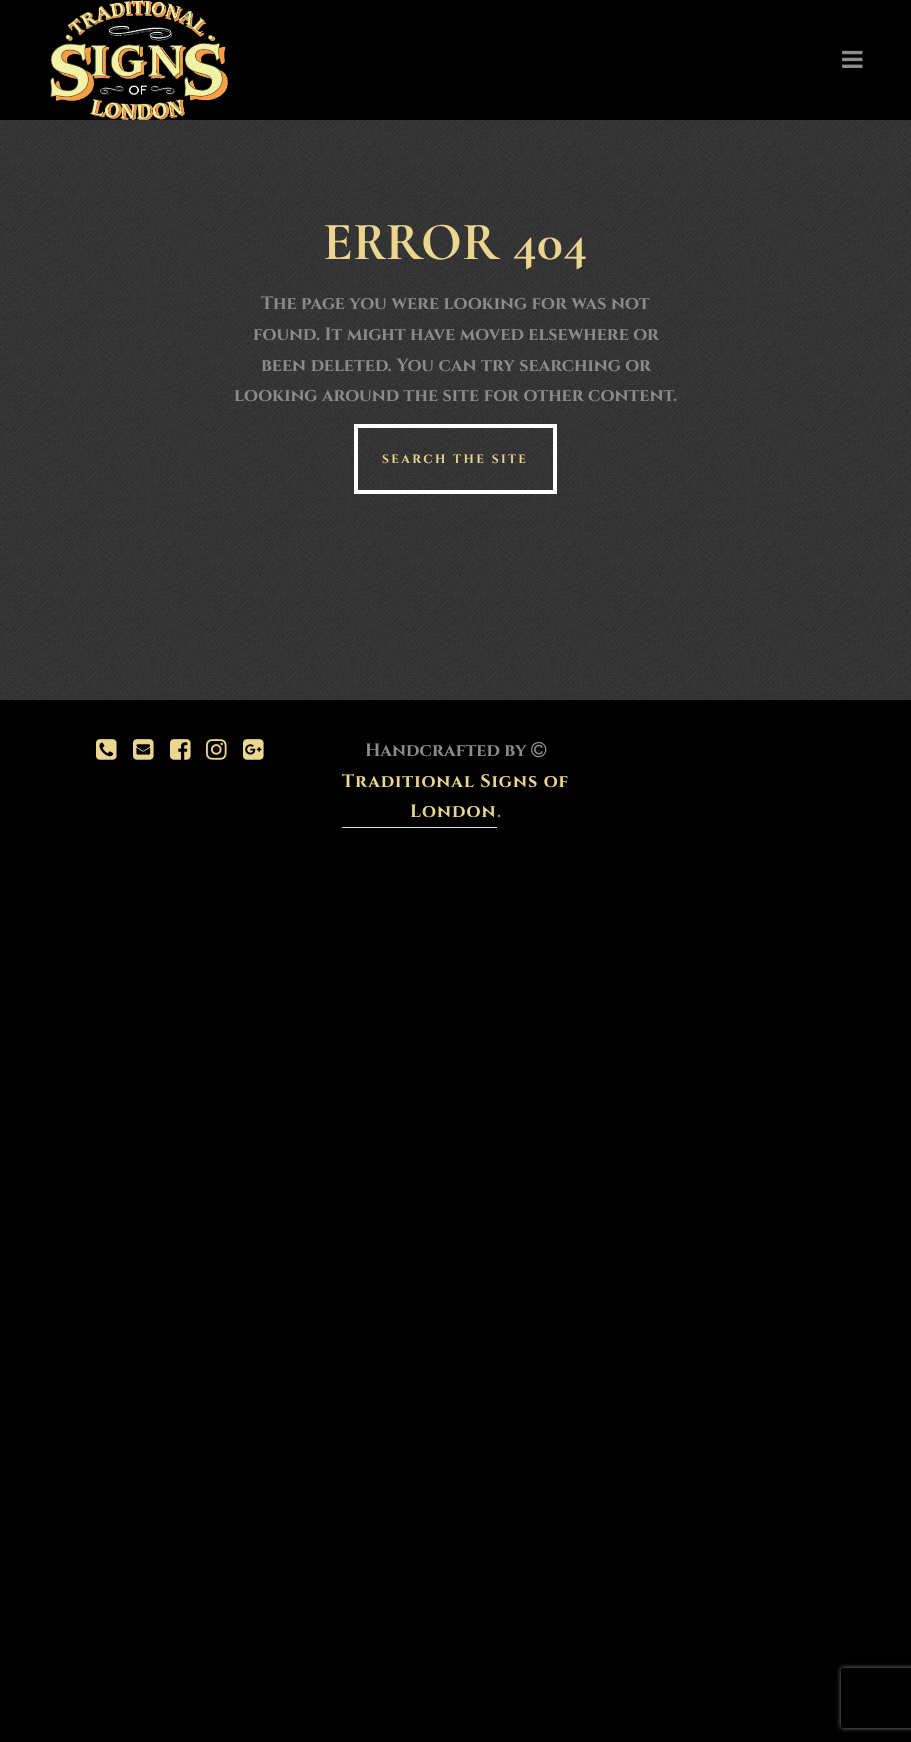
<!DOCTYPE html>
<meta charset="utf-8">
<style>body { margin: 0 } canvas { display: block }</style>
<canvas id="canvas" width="911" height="1742"></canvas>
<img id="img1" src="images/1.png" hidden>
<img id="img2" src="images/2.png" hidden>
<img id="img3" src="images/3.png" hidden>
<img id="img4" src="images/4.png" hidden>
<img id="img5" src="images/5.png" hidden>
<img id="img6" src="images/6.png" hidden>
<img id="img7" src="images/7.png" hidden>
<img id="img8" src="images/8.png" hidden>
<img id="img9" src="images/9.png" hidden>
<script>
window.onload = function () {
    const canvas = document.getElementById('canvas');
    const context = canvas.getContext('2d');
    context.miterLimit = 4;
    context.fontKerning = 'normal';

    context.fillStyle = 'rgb(0, 0, 0)';
    context.fillRect(0, 0, 911, 1742);
    context.drawImage(document.getElementById('img1'), 50, 0, 178, 120);
    context.drawImage(document.getElementById('img2'), 842, 50, 21, 18);
    context.drawImage(document.getElementById('img3'), 0, 120, 911, 580);
    context.strokeStyle = 'rgb(255, 255, 255)';
    context.lineWidth = 4;
    context.strokeRect(356, 426, 199, 66);
    context.drawImage(document.getElementById('img4'), 96, 739, 21, 21);
    context.drawImage(document.getElementById('img5'), 133, 739, 21, 21);
    context.drawImage(document.getElementById('img6'), 170, 739, 21, 21);
    context.drawImage(document.getElementById('img7'), 206, 739, 21, 21);
    context.drawImage(document.getElementById('img8'), 243, 739, 21, 21);
    context.drawImage(document.getElementById('img9'), 531, 741, 16, 17);
    context.fillStyle = 'rgb(215, 215, 215)';
    context.fillRect(342, 827, 155, 1);
    context.save();
    context.beginPath();
    context.moveTo(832, 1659);
    context.lineTo(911, 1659);
    context.lineTo(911, 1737);
    context.lineTo(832, 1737);
    context.closePath();
    context.moveTo(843, 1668);
    context.lineTo(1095, 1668);
    context.bezierCurveTo(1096, 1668, 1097, 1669, 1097, 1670);
    context.lineTo(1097, 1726);
    context.bezierCurveTo(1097, 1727, 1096, 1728, 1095, 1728);
    context.lineTo(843, 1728);
    context.bezierCurveTo(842, 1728, 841, 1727, 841, 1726);
    context.lineTo(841, 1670);
    context.bezierCurveTo(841, 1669, 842, 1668, 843, 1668);
    context.closePath();
    context.clip('evenodd');
    context.fillStyle = 'rgb(128, 128, 128)';
    context.filter = 'blur(2.5px)';
    context.beginPath();
    context.roundRect(841, 1668, 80, 60, 2);
    context.fill();
    context.filter = 'none';
    context.restore();
    context.font = 'bold 54px Cormorant Garamond';
    context.fillStyle = 'rgb(234, 214, 145)';
    context.fillText('ERROR 404', 323, 259);
    context.font = 'bold 18px Cinzel';
    context.fillStyle = 'rgb(140, 140, 140)';
    context.fillText('The page you were looking for was not', 261, 309);
    context.fillText('found. It might have moved elsewhere or', 253, 340);
    context.fillText('been deleted. You can try searching or', 261, 371);
    context.fillText('looking around the site for other content.', 234, 401);
    context.letterSpacing = '2.4px';
    context.font = 'bold 12px Cinzel';
    context.fillStyle = 'rgb(234, 214, 145)';
    context.fillText('SEARCH THE SITE', 382, 463);
    context.letterSpacing = '0px';
    context.font = 'bold 18px Cinzel';
    context.fillStyle = 'rgb(140, 140, 140)';
    context.fillText('Handcrafted by', 365, 756);
    context.letterSpacing = '1px';
    context.fillStyle = 'rgb(234, 214, 145)';
    context.fillText('Traditional Signs of', 342, 787);
    context.fillText('London', 410, 817);
    context.letterSpacing = '0px';
    context.fillStyle = 'rgb(140, 140, 140)';
    context.fillText('.', 497, 817);
};
</script>
